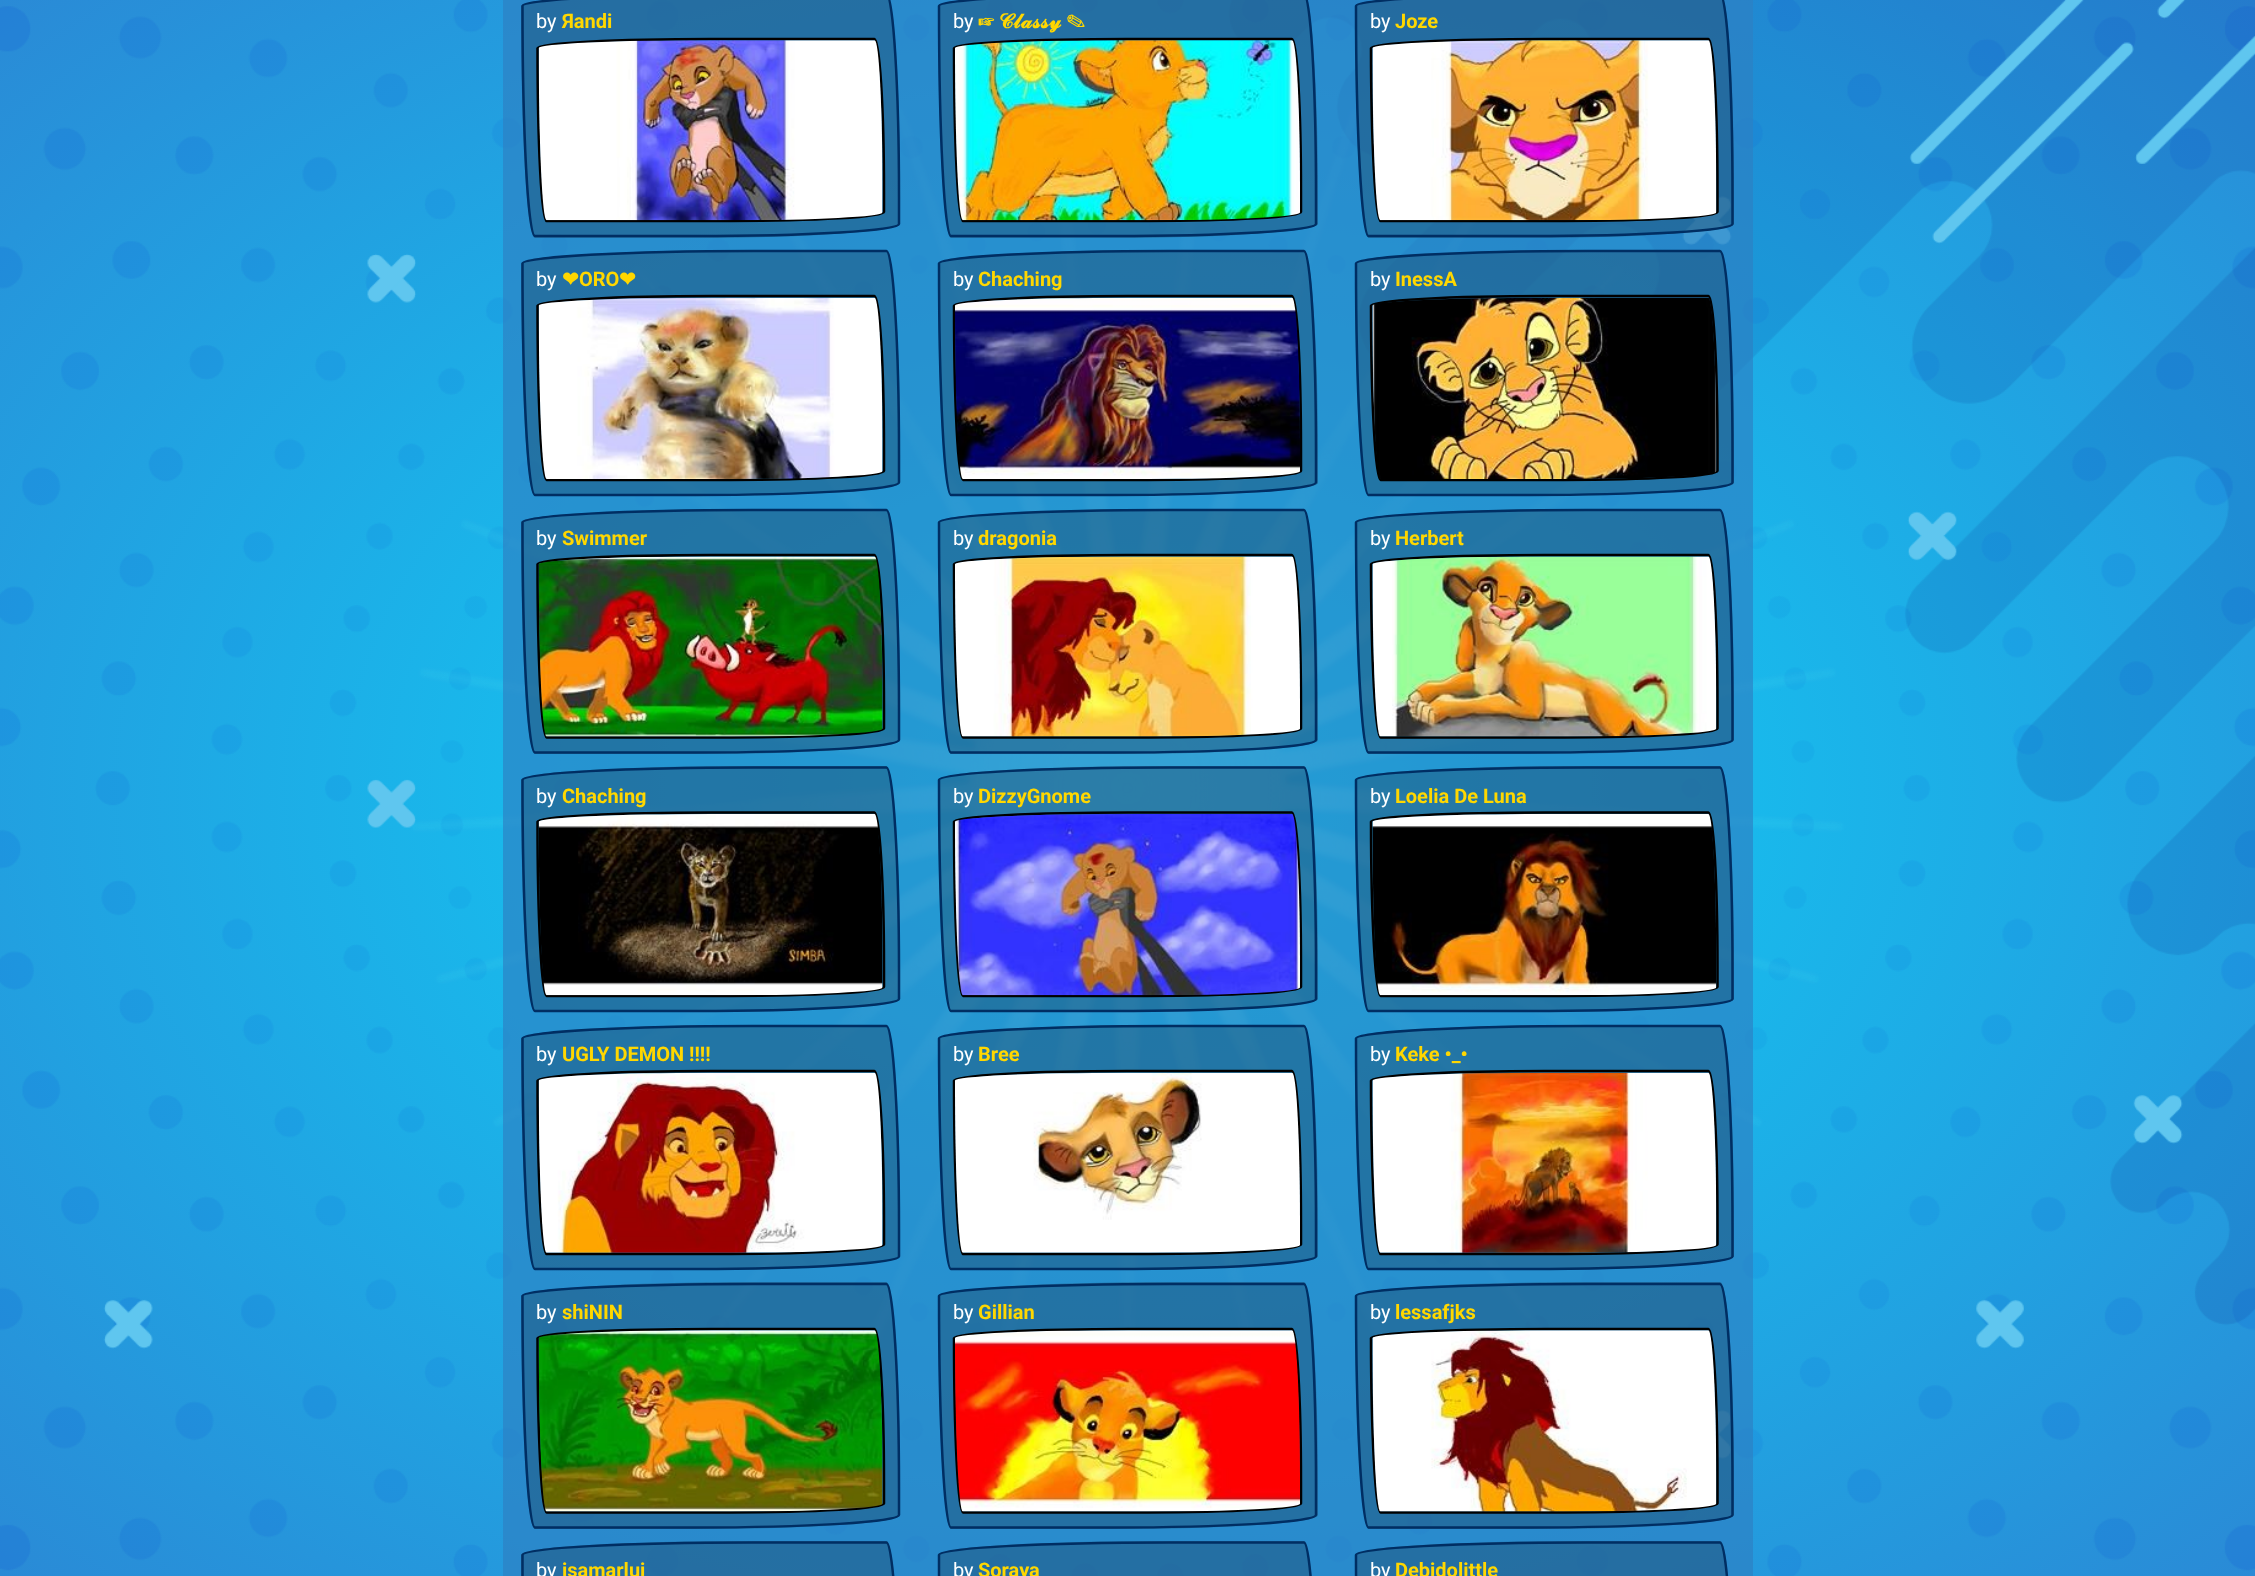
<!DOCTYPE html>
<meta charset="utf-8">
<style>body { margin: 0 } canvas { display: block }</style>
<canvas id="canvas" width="2255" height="1576"></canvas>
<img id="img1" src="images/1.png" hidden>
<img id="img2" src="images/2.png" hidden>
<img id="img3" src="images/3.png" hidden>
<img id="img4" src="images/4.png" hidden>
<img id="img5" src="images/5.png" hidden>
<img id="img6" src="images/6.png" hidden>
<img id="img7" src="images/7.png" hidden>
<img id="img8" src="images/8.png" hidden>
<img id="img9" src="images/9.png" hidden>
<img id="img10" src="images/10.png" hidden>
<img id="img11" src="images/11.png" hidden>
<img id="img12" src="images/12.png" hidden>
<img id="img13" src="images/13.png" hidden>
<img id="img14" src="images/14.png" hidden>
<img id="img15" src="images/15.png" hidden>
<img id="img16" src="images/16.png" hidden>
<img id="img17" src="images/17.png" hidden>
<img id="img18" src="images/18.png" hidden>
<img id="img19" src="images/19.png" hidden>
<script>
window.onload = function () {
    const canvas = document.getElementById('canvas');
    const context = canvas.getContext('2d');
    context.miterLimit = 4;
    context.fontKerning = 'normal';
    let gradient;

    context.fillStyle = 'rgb(255, 255, 255)';
    context.fillRect(0, 0, 2255, 1576);
    gradient = context.createRadialGradient(1128, 1127.23, 0, 1128, 1127.23, 1595);
    gradient.addColorStop(0, 'rgb(14, 214, 249)');
    gradient.addColorStop(1, 'rgb(42, 138, 214)');
    context.fillStyle = gradient;
    context.beginPath();
    context.rect(0, 0, 2255, 1576);
    context.save();
    context.clip();
    context.scale(1, 1115 / 1595);
    context.fillRect(0, 0, 2255, 2255);
    context.restore();
    context.drawImage(document.getElementById('img1'), 0, 0, 2255, 1576);
    context.fillStyle = 'rgba(45, 128, 194, 0.66)';
    context.fillRect(503, 0, 1250, 1576);
    context.fillStyle = 'rgba(31, 70, 101, 0.4)';
    context.beginPath();
    context.moveTo(753, -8);
    context.lineTo(886, -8);
    context.bezierCurveTo(894, -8, 900, 84, 900, 197);
    context.lineTo(900, 224);
    context.bezierCurveTo(900, 231, 809, 238, 696, 238);
    context.lineTo(535, 238);
    context.bezierCurveTo(527, 238, 521, 134, 521, 6);
    context.bezierCurveTo(521, -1, 625, -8, 753, -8);
    context.closePath();
    context.fill();
    context.beginPath();
    context.moveTo(752.5, -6);
    context.lineTo(886.5, -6);
    context.bezierCurveTo(893, -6, 899, 84.5, 899, 196.5);
    context.lineTo(899, 224);
    context.bezierCurveTo(899, 230.5, 808, 236, 696, 236);
    context.lineTo(535, 236);
    context.bezierCurveTo(528, 236, 522.5, 133, 522.5, 6);
    context.bezierCurveTo(522.5, -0.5, 625.5, -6, 752.5, -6);
    context.closePath();
    context.strokeStyle = 'rgb(0, 46, 99)';
    context.lineWidth = 2.5;
    context.stroke();
    context.beginPath();
    context.moveTo(711, 39);
    context.lineTo(874.5, 39);
    context.bezierCurveTo(879.5, 39, 884, 107, 884, 191.5);
    context.lineTo(884, 212);
    context.bezierCurveTo(884, 217, 815.5, 221, 731, 221);
    context.lineTo(546.5, 221);
    context.bezierCurveTo(541.5, 221, 537.5, 143.5, 537.5, 48);
    context.bezierCurveTo(537.5, 43, 615, 39, 711, 39);
    context.closePath();
    context.strokeStyle = 'rgb(0, 0, 0)';
    context.stroke();
    context.drawImage(document.getElementById('img2'), 538, 40, 345, 181);
    context.beginPath();
    context.moveTo(1169, -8);
    context.lineTo(1304, -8);
    context.bezierCurveTo(1311, -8, 1318, 84, 1318, 197);
    context.lineTo(1318, 224);
    context.bezierCurveTo(1318, 231, 1226, 238, 1113, 238);
    context.lineTo(951, 238);
    context.bezierCurveTo(944, 238, 938, 134, 938, 6);
    context.bezierCurveTo(938, -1, 1041, -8, 1169, -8);
    context.closePath();
    context.fill();
    context.beginPath();
    context.moveTo(1169, -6);
    context.lineTo(1304, -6);
    context.bezierCurveTo(1310.5, -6, 1316, 84.5, 1316, 196.5);
    context.lineTo(1316, 224);
    context.bezierCurveTo(1316, 230.5, 1225.5, 236, 1113.5, 236);
    context.lineTo(951, 236);
    context.bezierCurveTo(944.5, 236, 939, 133, 939, 6);
    context.bezierCurveTo(939, -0.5, 1042, -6, 1169, -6);
    context.closePath();
    context.strokeStyle = 'rgb(0, 46, 99)';
    context.stroke();
    context.beginPath();
    context.moveTo(1127, 39);
    context.lineTo(1292, 39);
    context.bezierCurveTo(1297, 39, 1301, 107, 1301, 191.5);
    context.lineTo(1301, 212);
    context.bezierCurveTo(1301, 217, 1233, 221, 1148.5, 221);
    context.lineTo(963, 221);
    context.bezierCurveTo(958, 221, 954, 143.5, 954, 48);
    context.bezierCurveTo(954, 43, 1031.5, 39, 1127, 39);
    context.closePath();
    context.strokeStyle = 'rgb(0, 0, 0)';
    context.stroke();
    context.drawImage(document.getElementById('img3'), 955, 40, 345, 181);
    context.beginPath();
    context.moveTo(1586, -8);
    context.lineTo(1720, -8);
    context.bezierCurveTo(1728, -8, 1734, 84, 1734, 197);
    context.lineTo(1734, 224);
    context.bezierCurveTo(1734, 231, 1642, 238, 1530, 238);
    context.lineTo(1369, 238);
    context.bezierCurveTo(1361, 238, 1355, 134, 1355, 6);
    context.bezierCurveTo(1355, -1, 1459, -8, 1586, -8);
    context.closePath();
    context.fill();
    context.beginPath();
    context.moveTo(1586.5, -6);
    context.lineTo(1720, -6);
    context.bezierCurveTo(1727, -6, 1732.5, 84.5, 1732.5, 196.5);
    context.lineTo(1732.5, 224);
    context.bezierCurveTo(1732.5, 230.5, 1641.5, 236, 1529.5, 236);
    context.lineTo(1368.5, 236);
    context.bezierCurveTo(1362, 236, 1356, 133, 1356, 6);
    context.bezierCurveTo(1356, -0.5, 1459.5, -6, 1586.5, -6);
    context.closePath();
    context.strokeStyle = 'rgb(0, 46, 99)';
    context.stroke();
    context.beginPath();
    context.moveTo(1544.5, 39);
    context.lineTo(1708.5, 39);
    context.bezierCurveTo(1713.5, 39, 1717.5, 107, 1717.5, 191.5);
    context.lineTo(1717.5, 212);
    context.bezierCurveTo(1717.5, 217, 1649, 221, 1564.5, 221);
    context.lineTo(1380.5, 221);
    context.bezierCurveTo(1375.5, 221, 1371, 143.5, 1371, 48);
    context.bezierCurveTo(1371, 43, 1449, 39, 1544.5, 39);
    context.closePath();
    context.strokeStyle = 'rgb(0, 0, 0)';
    context.stroke();
    context.drawImage(document.getElementById('img4'), 1372, 40, 345, 181);
    context.beginPath();
    context.moveTo(754, 250);
    context.lineTo(886, 250);
    context.bezierCurveTo(894, 250, 900, 342, 900, 455);
    context.lineTo(900, 483);
    context.bezierCurveTo(900, 490, 808, 496, 695, 496);
    context.lineTo(535, 496);
    context.bezierCurveTo(527, 496, 521, 392, 521, 264);
    context.bezierCurveTo(521, 256, 625, 250, 754, 250);
    context.closePath();
    context.fill();
    context.beginPath();
    context.moveTo(754, 251);
    context.lineTo(886.5, 251);
    context.bezierCurveTo(893, 251, 899, 342.5, 899, 455);
    context.lineTo(899, 482.5);
    context.bezierCurveTo(899, 489.5, 807.5, 495, 695, 495);
    context.lineTo(535, 495);
    context.bezierCurveTo(528, 495, 522.5, 391.5, 522.5, 263.5);
    context.bezierCurveTo(522.5, 257, 626, 251, 754, 251);
    context.closePath();
    context.strokeStyle = 'rgb(0, 46, 99)';
    context.stroke();
    context.beginPath();
    context.moveTo(712, 296);
    context.lineTo(874.5, 296);
    context.bezierCurveTo(879.5, 296, 884, 365, 884, 450);
    context.lineTo(884, 471);
    context.bezierCurveTo(884, 476, 815, 480, 730, 480);
    context.lineTo(546.5, 480);
    context.bezierCurveTo(541.5, 480, 537.5, 402, 537.5, 305.5);
    context.bezierCurveTo(537.5, 300.5, 615.5, 296, 712, 296);
    context.closePath();
    context.strokeStyle = 'rgb(0, 0, 0)';
    context.stroke();
    context.drawImage(document.getElementById('img5'), 538, 297, 345, 182);
    context.beginPath();
    context.moveTo(1170, 250);
    context.lineTo(1304, 250);
    context.bezierCurveTo(1311, 250, 1318, 342, 1318, 455);
    context.lineTo(1318, 483);
    context.bezierCurveTo(1318, 490, 1226, 496, 1112, 496);
    context.lineTo(951, 496);
    context.bezierCurveTo(944, 496, 938, 392, 938, 264);
    context.bezierCurveTo(938, 256, 1042, 250, 1170, 250);
    context.closePath();
    context.fill();
    context.beginPath();
    context.moveTo(1170, 251);
    context.lineTo(1304, 251);
    context.bezierCurveTo(1310.5, 251, 1316, 342.5, 1316, 455);
    context.lineTo(1316, 482.5);
    context.bezierCurveTo(1316, 489.5, 1225, 495, 1112.5, 495);
    context.lineTo(951, 495);
    context.bezierCurveTo(944.5, 495, 939, 391.5, 939, 263.5);
    context.bezierCurveTo(939, 257, 1042.5, 251, 1170, 251);
    context.closePath();
    context.strokeStyle = 'rgb(0, 46, 99)';
    context.stroke();
    context.beginPath();
    context.moveTo(1128.5, 296);
    context.lineTo(1292, 296);
    context.bezierCurveTo(1297, 296, 1301, 365, 1301, 450);
    context.lineTo(1301, 471);
    context.bezierCurveTo(1301, 476, 1232.5, 480, 1147.5, 480);
    context.lineTo(963, 480);
    context.bezierCurveTo(958, 480, 954, 402, 954, 305.5);
    context.bezierCurveTo(954, 300.5, 1032, 296, 1128.5, 296);
    context.closePath();
    context.strokeStyle = 'rgb(0, 0, 0)';
    context.stroke();
    context.drawImage(document.getElementById('img6'), 955, 297, 345, 182);
    context.beginPath();
    context.moveTo(1588, 250);
    context.lineTo(1720, 250);
    context.bezierCurveTo(1728, 250, 1734, 342, 1734, 455);
    context.lineTo(1734, 483);
    context.bezierCurveTo(1734, 490, 1642, 496, 1529, 496);
    context.lineTo(1369, 496);
    context.bezierCurveTo(1361, 496, 1355, 392, 1355, 264);
    context.bezierCurveTo(1355, 256, 1459, 250, 1588, 250);
    context.closePath();
    context.fill();
    context.beginPath();
    context.moveTo(1587.5, 251);
    context.lineTo(1720, 251);
    context.bezierCurveTo(1727, 251, 1732.5, 342.5, 1732.5, 455);
    context.lineTo(1732.5, 482.5);
    context.bezierCurveTo(1732.5, 489.5, 1641, 495, 1528.5, 495);
    context.lineTo(1368.5, 495);
    context.bezierCurveTo(1362, 495, 1356, 391.5, 1356, 263.5);
    context.bezierCurveTo(1356, 257, 1460, 251, 1587.5, 251);
    context.closePath();
    context.strokeStyle = 'rgb(0, 46, 99)';
    context.stroke();
    context.beginPath();
    context.moveTo(1546, 296);
    context.lineTo(1708.5, 296);
    context.bezierCurveTo(1713.5, 296, 1717.5, 365, 1717.5, 450);
    context.lineTo(1717.5, 471);
    context.bezierCurveTo(1717.5, 476, 1648.5, 480, 1563.5, 480);
    context.lineTo(1380.5, 480);
    context.bezierCurveTo(1375.5, 480, 1371, 402, 1371, 305.5);
    context.bezierCurveTo(1371, 300.5, 1449.5, 296, 1546, 296);
    context.closePath();
    context.strokeStyle = 'rgb(0, 0, 0)';
    context.stroke();
    context.drawImage(document.getElementById('img7'), 1372, 297, 345, 182);
    context.beginPath();
    context.moveTo(753, 509);
    context.lineTo(886, 509);
    context.bezierCurveTo(894, 509, 900, 600, 900, 713);
    context.lineTo(900, 740);
    context.bezierCurveTo(900, 748, 809, 754, 696, 754);
    context.lineTo(535, 754);
    context.bezierCurveTo(527, 754, 521, 650, 521, 522);
    context.bezierCurveTo(521, 515, 625, 509, 753, 509);
    context.closePath();
    context.fill();
    context.beginPath();
    context.moveTo(752.5, 510);
    context.lineTo(886.5, 510);
    context.bezierCurveTo(893, 510, 899, 601, 899, 713);
    context.lineTo(899, 740);
    context.bezierCurveTo(899, 747, 808, 752.5, 696, 752.5);
    context.lineTo(535, 752.5);
    context.bezierCurveTo(528, 752.5, 522.5, 649.5, 522.5, 522.5);
    context.bezierCurveTo(522.5, 515.5, 625.5, 510, 752.5, 510);
    context.closePath();
    context.strokeStyle = 'rgb(0, 46, 99)';
    context.stroke();
    context.beginPath();
    context.moveTo(711, 555);
    context.lineTo(874.5, 555);
    context.bezierCurveTo(879.5, 555, 884, 623.5, 884, 708);
    context.lineTo(884, 728.5);
    context.bezierCurveTo(884, 733.5, 815.5, 737.5, 731, 737.5);
    context.lineTo(546.5, 737.5);
    context.bezierCurveTo(541.5, 737.5, 537.5, 660, 537.5, 564);
    context.bezierCurveTo(537.5, 559, 615, 555, 711, 555);
    context.closePath();
    context.strokeStyle = 'rgb(0, 0, 0)';
    context.stroke();
    context.drawImage(document.getElementById('img8'), 538, 556, 345, 181);
    context.beginPath();
    context.moveTo(1169, 509);
    context.lineTo(1304, 509);
    context.bezierCurveTo(1311, 509, 1318, 600, 1318, 713);
    context.lineTo(1318, 740);
    context.bezierCurveTo(1318, 748, 1226, 754, 1113, 754);
    context.lineTo(951, 754);
    context.bezierCurveTo(944, 754, 938, 650, 938, 522);
    context.bezierCurveTo(938, 515, 1041, 509, 1169, 509);
    context.closePath();
    context.fill();
    context.beginPath();
    context.moveTo(1169, 510);
    context.lineTo(1304, 510);
    context.bezierCurveTo(1310.5, 510, 1316, 601, 1316, 713);
    context.lineTo(1316, 740);
    context.bezierCurveTo(1316, 747, 1225.5, 752.5, 1113.5, 752.5);
    context.lineTo(951, 752.5);
    context.bezierCurveTo(944.5, 752.5, 939, 649.5, 939, 522.5);
    context.bezierCurveTo(939, 515.5, 1042, 510, 1169, 510);
    context.closePath();
    context.strokeStyle = 'rgb(0, 46, 99)';
    context.stroke();
    context.beginPath();
    context.moveTo(1127, 555);
    context.lineTo(1292, 555);
    context.bezierCurveTo(1297, 555, 1301, 623.5, 1301, 708);
    context.lineTo(1301, 728.5);
    context.bezierCurveTo(1301, 733.5, 1233, 737.5, 1148.5, 737.5);
    context.lineTo(963, 737.5);
    context.bezierCurveTo(958, 737.5, 954, 660, 954, 564);
    context.bezierCurveTo(954, 559, 1031.5, 555, 1127, 555);
    context.closePath();
    context.strokeStyle = 'rgb(0, 0, 0)';
    context.stroke();
    context.drawImage(document.getElementById('img9'), 955, 556, 345, 181);
    context.beginPath();
    context.moveTo(1586, 509);
    context.lineTo(1720, 509);
    context.bezierCurveTo(1728, 509, 1734, 600, 1734, 713);
    context.lineTo(1734, 740);
    context.bezierCurveTo(1734, 748, 1642, 754, 1530, 754);
    context.lineTo(1369, 754);
    context.bezierCurveTo(1361, 754, 1355, 650, 1355, 522);
    context.bezierCurveTo(1355, 515, 1459, 509, 1586, 509);
    context.closePath();
    context.fill();
    context.beginPath();
    context.moveTo(1586.5, 510);
    context.lineTo(1720, 510);
    context.bezierCurveTo(1727, 510, 1732.5, 601, 1732.5, 713);
    context.lineTo(1732.5, 740);
    context.bezierCurveTo(1732.5, 747, 1641.5, 752.5, 1529.5, 752.5);
    context.lineTo(1368.5, 752.5);
    context.bezierCurveTo(1362, 752.5, 1356, 649.5, 1356, 522.5);
    context.bezierCurveTo(1356, 515.5, 1459.5, 510, 1586.5, 510);
    context.closePath();
    context.strokeStyle = 'rgb(0, 46, 99)';
    context.stroke();
    context.beginPath();
    context.moveTo(1544.5, 555);
    context.lineTo(1708.5, 555);
    context.bezierCurveTo(1713.5, 555, 1717.5, 623.5, 1717.5, 708);
    context.lineTo(1717.5, 728.5);
    context.bezierCurveTo(1717.5, 733.5, 1649, 737.5, 1564.5, 737.5);
    context.lineTo(1380.5, 737.5);
    context.bezierCurveTo(1375.5, 737.5, 1371, 660, 1371, 564);
    context.bezierCurveTo(1371, 559, 1449, 555, 1544.5, 555);
    context.closePath();
    context.strokeStyle = 'rgb(0, 0, 0)';
    context.stroke();
    context.drawImage(document.getElementById('img10'), 1372, 556, 345, 181);
    context.beginPath();
    context.moveTo(754, 766);
    context.lineTo(886, 766);
    context.bezierCurveTo(894, 766, 900, 858, 900, 971);
    context.lineTo(900, 999);
    context.bezierCurveTo(900, 1006, 808, 1012, 695, 1012);
    context.lineTo(535, 1012);
    context.bezierCurveTo(527, 1012, 521, 908, 521, 780);
    context.bezierCurveTo(521, 772, 625, 766, 754, 766);
    context.closePath();
    context.fill();
    context.beginPath();
    context.moveTo(754, 767.5);
    context.lineTo(886.5, 767.5);
    context.bezierCurveTo(893, 767.5, 899, 859, 899, 971.5);
    context.lineTo(899, 999);
    context.bezierCurveTo(899, 1005.5, 807.5, 1011, 695, 1011);
    context.lineTo(535, 1011);
    context.bezierCurveTo(528, 1011, 522.5, 907.5, 522.5, 780);
    context.bezierCurveTo(522.5, 773, 626, 767.5, 754, 767.5);
    context.closePath();
    context.strokeStyle = 'rgb(0, 46, 99)';
    context.stroke();
    context.beginPath();
    context.moveTo(712, 812.5);
    context.lineTo(874.5, 812.5);
    context.bezierCurveTo(879.5, 812.5, 884, 881.5, 884, 966.5);
    context.lineTo(884, 987);
    context.bezierCurveTo(884, 992, 815, 996, 730, 996);
    context.lineTo(546.5, 996);
    context.bezierCurveTo(541.5, 996, 537.5, 918, 537.5, 821.5);
    context.bezierCurveTo(537.5, 816.5, 615.5, 812.5, 712, 812.5);
    context.closePath();
    context.strokeStyle = 'rgb(0, 0, 0)';
    context.stroke();
    context.drawImage(document.getElementById('img11'), 538, 814, 345, 182);
    context.beginPath();
    context.moveTo(1170, 766);
    context.lineTo(1304, 766);
    context.bezierCurveTo(1311, 766, 1318, 858, 1318, 971);
    context.lineTo(1318, 999);
    context.bezierCurveTo(1318, 1006, 1226, 1012, 1112, 1012);
    context.lineTo(951, 1012);
    context.bezierCurveTo(944, 1012, 938, 908, 938, 780);
    context.bezierCurveTo(938, 772, 1042, 766, 1170, 766);
    context.closePath();
    context.fill();
    context.beginPath();
    context.moveTo(1170, 767.5);
    context.lineTo(1304, 767.5);
    context.bezierCurveTo(1310.5, 767.5, 1316, 859, 1316, 971.5);
    context.lineTo(1316, 999);
    context.bezierCurveTo(1316, 1005.5, 1225, 1011, 1112.5, 1011);
    context.lineTo(951, 1011);
    context.bezierCurveTo(944.5, 1011, 939, 907.5, 939, 780);
    context.bezierCurveTo(939, 773, 1042.5, 767.5, 1170, 767.5);
    context.closePath();
    context.strokeStyle = 'rgb(0, 46, 99)';
    context.stroke();
    context.beginPath();
    context.moveTo(1128.5, 812.5);
    context.lineTo(1292, 812.5);
    context.bezierCurveTo(1297, 812.5, 1301, 881.5, 1301, 966.5);
    context.lineTo(1301, 987);
    context.bezierCurveTo(1301, 992, 1232.5, 996, 1147.5, 996);
    context.lineTo(963, 996);
    context.bezierCurveTo(958, 996, 954, 918, 954, 821.5);
    context.bezierCurveTo(954, 816.5, 1032, 812.5, 1128.5, 812.5);
    context.closePath();
    context.strokeStyle = 'rgb(0, 0, 0)';
    context.stroke();
    context.drawImage(document.getElementById('img12'), 955, 814, 345, 182);
    context.beginPath();
    context.moveTo(1588, 766);
    context.lineTo(1720, 766);
    context.bezierCurveTo(1728, 766, 1734, 858, 1734, 971);
    context.lineTo(1734, 999);
    context.bezierCurveTo(1734, 1006, 1642, 1012, 1529, 1012);
    context.lineTo(1369, 1012);
    context.bezierCurveTo(1361, 1012, 1355, 908, 1355, 780);
    context.bezierCurveTo(1355, 772, 1459, 766, 1588, 766);
    context.closePath();
    context.fill();
    context.beginPath();
    context.moveTo(1587.5, 767.5);
    context.lineTo(1720, 767.5);
    context.bezierCurveTo(1727, 767.5, 1732.5, 859, 1732.5, 971.5);
    context.lineTo(1732.5, 999);
    context.bezierCurveTo(1732.5, 1005.5, 1641, 1011, 1528.5, 1011);
    context.lineTo(1368.5, 1011);
    context.bezierCurveTo(1362, 1011, 1356, 907.5, 1356, 780);
    context.bezierCurveTo(1356, 773, 1460, 767.5, 1587.5, 767.5);
    context.closePath();
    context.strokeStyle = 'rgb(0, 46, 99)';
    context.stroke();
    context.beginPath();
    context.moveTo(1546, 812.5);
    context.lineTo(1708.5, 812.5);
    context.bezierCurveTo(1713.5, 812.5, 1717.5, 881.5, 1717.5, 966.5);
    context.lineTo(1717.5, 987);
    context.bezierCurveTo(1717.5, 992, 1648.5, 996, 1563.5, 996);
    context.lineTo(1380.5, 996);
    context.bezierCurveTo(1375.5, 996, 1371, 918, 1371, 821.5);
    context.bezierCurveTo(1371, 816.5, 1449.5, 812.5, 1546, 812.5);
    context.closePath();
    context.strokeStyle = 'rgb(0, 0, 0)';
    context.stroke();
    context.drawImage(document.getElementById('img13'), 1372, 814, 345, 182);
    context.beginPath();
    context.moveTo(753, 1025);
    context.lineTo(886, 1025);
    context.bezierCurveTo(894, 1025, 900, 1116, 900, 1229);
    context.lineTo(900, 1256);
    context.bezierCurveTo(900, 1264, 809, 1270, 696, 1270);
    context.lineTo(535, 1270);
    context.bezierCurveTo(527, 1270, 521, 1166, 521, 1039);
    context.bezierCurveTo(521, 1031, 625, 1025, 753, 1025);
    context.closePath();
    context.fill();
    context.beginPath();
    context.moveTo(752.5, 1026);
    context.lineTo(886.5, 1026);
    context.bezierCurveTo(893, 1026, 899, 1117, 899, 1229);
    context.lineTo(899, 1256.5);
    context.bezierCurveTo(899, 1263, 808, 1269, 696, 1269);
    context.lineTo(535, 1269);
    context.bezierCurveTo(528, 1269, 522.5, 1165.5, 522.5, 1038.5);
    context.bezierCurveTo(522.5, 1032, 625.5, 1026, 752.5, 1026);
    context.closePath();
    context.strokeStyle = 'rgb(0, 46, 99)';
    context.stroke();
    context.beginPath();
    context.moveTo(711, 1071);
    context.lineTo(874.5, 1071);
    context.bezierCurveTo(879.5, 1071, 884, 1139.5, 884, 1224);
    context.lineTo(884, 1244.5);
    context.bezierCurveTo(884, 1249.5, 815.5, 1254, 731, 1254);
    context.lineTo(546.5, 1254);
    context.bezierCurveTo(541.5, 1254, 537.5, 1176, 537.5, 1080.5);
    context.bezierCurveTo(537.5, 1075.5, 615, 1071, 711, 1071);
    context.closePath();
    context.strokeStyle = 'rgb(0, 0, 0)';
    context.stroke();
    context.drawImage(document.getElementById('img14'), 538, 1072, 345, 181);
    context.beginPath();
    context.moveTo(1169, 1025);
    context.lineTo(1304, 1025);
    context.bezierCurveTo(1311, 1025, 1318, 1116, 1318, 1229);
    context.lineTo(1318, 1256);
    context.bezierCurveTo(1318, 1264, 1226, 1270, 1113, 1270);
    context.lineTo(951, 1270);
    context.bezierCurveTo(944, 1270, 938, 1166, 938, 1039);
    context.bezierCurveTo(938, 1031, 1041, 1025, 1169, 1025);
    context.closePath();
    context.fill();
    context.beginPath();
    context.moveTo(1169, 1026);
    context.lineTo(1304, 1026);
    context.bezierCurveTo(1310.5, 1026, 1316, 1117, 1316, 1229);
    context.lineTo(1316, 1256.5);
    context.bezierCurveTo(1316, 1263, 1225.5, 1269, 1113.5, 1269);
    context.lineTo(951, 1269);
    context.bezierCurveTo(944.5, 1269, 939, 1165.5, 939, 1038.5);
    context.bezierCurveTo(939, 1032, 1042, 1026, 1169, 1026);
    context.closePath();
    context.strokeStyle = 'rgb(0, 46, 99)';
    context.stroke();
    context.beginPath();
    context.moveTo(1127, 1071);
    context.lineTo(1292, 1071);
    context.bezierCurveTo(1297, 1071, 1301, 1139.5, 1301, 1224);
    context.lineTo(1301, 1244.5);
    context.bezierCurveTo(1301, 1249.5, 1233, 1254, 1148.5, 1254);
    context.lineTo(963, 1254);
    context.bezierCurveTo(958, 1254, 954, 1176, 954, 1080.5);
    context.bezierCurveTo(954, 1075.5, 1031.5, 1071, 1127, 1071);
    context.closePath();
    context.strokeStyle = 'rgb(0, 0, 0)';
    context.stroke();
    context.drawImage(document.getElementById('img15'), 955, 1072, 345, 181);
    context.beginPath();
    context.moveTo(1586, 1025);
    context.lineTo(1720, 1025);
    context.bezierCurveTo(1728, 1025, 1734, 1116, 1734, 1229);
    context.lineTo(1734, 1256);
    context.bezierCurveTo(1734, 1264, 1642, 1270, 1530, 1270);
    context.lineTo(1369, 1270);
    context.bezierCurveTo(1361, 1270, 1355, 1166, 1355, 1039);
    context.bezierCurveTo(1355, 1031, 1459, 1025, 1586, 1025);
    context.closePath();
    context.fill();
    context.beginPath();
    context.moveTo(1586.5, 1026);
    context.lineTo(1720, 1026);
    context.bezierCurveTo(1727, 1026, 1732.5, 1117, 1732.5, 1229);
    context.lineTo(1732.5, 1256.5);
    context.bezierCurveTo(1732.5, 1263, 1641.5, 1269, 1529.5, 1269);
    context.lineTo(1368.5, 1269);
    context.bezierCurveTo(1362, 1269, 1356, 1165.5, 1356, 1038.5);
    context.bezierCurveTo(1356, 1032, 1459.5, 1026, 1586.5, 1026);
    context.closePath();
    context.strokeStyle = 'rgb(0, 46, 99)';
    context.stroke();
    context.beginPath();
    context.moveTo(1544.5, 1071);
    context.lineTo(1708.5, 1071);
    context.bezierCurveTo(1713.5, 1071, 1717.5, 1139.5, 1717.5, 1224);
    context.lineTo(1717.5, 1244.5);
    context.bezierCurveTo(1717.5, 1249.5, 1649, 1254, 1564.5, 1254);
    context.lineTo(1380.5, 1254);
    context.bezierCurveTo(1375.5, 1254, 1371, 1176, 1371, 1080.5);
    context.bezierCurveTo(1371, 1075.5, 1449, 1071, 1544.5, 1071);
    context.closePath();
    context.strokeStyle = 'rgb(0, 0, 0)';
    context.stroke();
    context.drawImage(document.getElementById('img16'), 1372, 1072, 345, 181);
    context.beginPath();
    context.moveTo(754, 1282);
    context.lineTo(886, 1282);
    context.bezierCurveTo(894, 1282, 900, 1374, 900, 1488);
    context.lineTo(900, 1515);
    context.bezierCurveTo(900, 1523, 808, 1529, 695, 1529);
    context.lineTo(535, 1529);
    context.bezierCurveTo(527, 1529, 521, 1425, 521, 1296);
    context.bezierCurveTo(521, 1289, 625, 1282, 754, 1282);
    context.closePath();
    context.fill();
    context.beginPath();
    context.moveTo(754, 1284);
    context.lineTo(886.5, 1284);
    context.bezierCurveTo(893, 1284, 899, 1375, 899, 1487.5);
    context.lineTo(899, 1515);
    context.bezierCurveTo(899, 1522, 807.5, 1527.5, 695, 1527.5);
    context.lineTo(535, 1527.5);
    context.bezierCurveTo(528, 1527.5, 522.5, 1424, 522.5, 1296);
    context.bezierCurveTo(522.5, 1289.5, 626, 1284, 754, 1284);
    context.closePath();
    context.strokeStyle = 'rgb(0, 46, 99)';
    context.stroke();
    context.beginPath();
    context.moveTo(712, 1329);
    context.lineTo(874.5, 1329);
    context.bezierCurveTo(879.5, 1329, 884, 1397.5, 884, 1482.5);
    context.lineTo(884, 1503.5);
    context.bezierCurveTo(884, 1508.5, 815, 1512.5, 730, 1512.5);
    context.lineTo(546.5, 1512.5);
    context.bezierCurveTo(541.5, 1512.5, 537.5, 1434.5, 537.5, 1338);
    context.bezierCurveTo(537.5, 1333, 615.5, 1329, 712, 1329);
    context.closePath();
    context.strokeStyle = 'rgb(0, 0, 0)';
    context.stroke();
    context.drawImage(document.getElementById('img17'), 538, 1330, 345, 182);
    context.beginPath();
    context.moveTo(1170, 1282);
    context.lineTo(1304, 1282);
    context.bezierCurveTo(1311, 1282, 1318, 1374, 1318, 1488);
    context.lineTo(1318, 1515);
    context.bezierCurveTo(1318, 1523, 1226, 1529, 1112, 1529);
    context.lineTo(951, 1529);
    context.bezierCurveTo(944, 1529, 938, 1425, 938, 1296);
    context.bezierCurveTo(938, 1289, 1042, 1282, 1170, 1282);
    context.closePath();
    context.fill();
    context.beginPath();
    context.moveTo(1170, 1284);
    context.lineTo(1304, 1284);
    context.bezierCurveTo(1310.5, 1284, 1316, 1375, 1316, 1487.5);
    context.lineTo(1316, 1515);
    context.bezierCurveTo(1316, 1522, 1225, 1527.5, 1112.5, 1527.5);
    context.lineTo(951, 1527.5);
    context.bezierCurveTo(944.5, 1527.5, 939, 1424, 939, 1296);
    context.bezierCurveTo(939, 1289.5, 1042.5, 1284, 1170, 1284);
    context.closePath();
    context.strokeStyle = 'rgb(0, 46, 99)';
    context.stroke();
    context.beginPath();
    context.moveTo(1128.5, 1329);
    context.lineTo(1292, 1329);
    context.bezierCurveTo(1297, 1329, 1301, 1397.5, 1301, 1482.5);
    context.lineTo(1301, 1503.5);
    context.bezierCurveTo(1301, 1508.5, 1232.5, 1512.5, 1147.5, 1512.5);
    context.lineTo(963, 1512.5);
    context.bezierCurveTo(958, 1512.5, 954, 1434.5, 954, 1338);
    context.bezierCurveTo(954, 1333, 1032, 1329, 1128.5, 1329);
    context.closePath();
    context.strokeStyle = 'rgb(0, 0, 0)';
    context.stroke();
    context.drawImage(document.getElementById('img18'), 955, 1330, 345, 182);
    context.beginPath();
    context.moveTo(1588, 1282);
    context.lineTo(1720, 1282);
    context.bezierCurveTo(1728, 1282, 1734, 1374, 1734, 1488);
    context.lineTo(1734, 1515);
    context.bezierCurveTo(1734, 1523, 1642, 1529, 1529, 1529);
    context.lineTo(1369, 1529);
    context.bezierCurveTo(1361, 1529, 1355, 1425, 1355, 1296);
    context.bezierCurveTo(1355, 1289, 1459, 1282, 1588, 1282);
    context.closePath();
    context.fill();
    context.beginPath();
    context.moveTo(1587.5, 1284);
    context.lineTo(1720, 1284);
    context.bezierCurveTo(1727, 1284, 1732.5, 1375, 1732.5, 1487.5);
    context.lineTo(1732.5, 1515);
    context.bezierCurveTo(1732.5, 1522, 1641, 1527.5, 1528.5, 1527.5);
    context.lineTo(1368.5, 1527.5);
    context.bezierCurveTo(1362, 1527.5, 1356, 1424, 1356, 1296);
    context.bezierCurveTo(1356, 1289.5, 1460, 1284, 1587.5, 1284);
    context.closePath();
    context.strokeStyle = 'rgb(0, 46, 99)';
    context.stroke();
    context.beginPath();
    context.moveTo(1546, 1329);
    context.lineTo(1708.5, 1329);
    context.bezierCurveTo(1713.5, 1329, 1717.5, 1397.5, 1717.5, 1482.5);
    context.lineTo(1717.5, 1503.5);
    context.bezierCurveTo(1717.5, 1508.5, 1648.5, 1512.5, 1563.5, 1512.5);
    context.lineTo(1380.5, 1512.5);
    context.bezierCurveTo(1375.5, 1512.5, 1371, 1434.5, 1371, 1338);
    context.bezierCurveTo(1371, 1333, 1449.5, 1329, 1546, 1329);
    context.closePath();
    context.strokeStyle = 'rgb(0, 0, 0)';
    context.stroke();
    context.drawImage(document.getElementById('img19'), 1372, 1330, 345, 182);
    context.beginPath();
    context.moveTo(753, 1541);
    context.lineTo(886, 1541);
    context.bezierCurveTo(894, 1541, 900, 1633, 900, 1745);
    context.lineTo(900, 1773);
    context.bezierCurveTo(900, 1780, 809, 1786, 696, 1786);
    context.lineTo(535, 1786);
    context.bezierCurveTo(527, 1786, 521, 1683, 521, 1555);
    context.bezierCurveTo(521, 1547, 625, 1541, 753, 1541);
    context.closePath();
    context.fill();
    context.beginPath();
    context.moveTo(752.5, 1542.5);
    context.lineTo(886.5, 1542.5);
    context.bezierCurveTo(893, 1542.5, 899, 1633.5, 899, 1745.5);
    context.lineTo(899, 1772.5);
    context.bezierCurveTo(899, 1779.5, 808, 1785, 696, 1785);
    context.lineTo(535, 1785);
    context.bezierCurveTo(528, 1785, 522.5, 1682, 522.5, 1555);
    context.bezierCurveTo(522.5, 1548, 625.5, 1542.5, 752.5, 1542.5);
    context.closePath();
    context.strokeStyle = 'rgb(0, 46, 99)';
    context.stroke();
    context.beginPath();
    context.moveTo(1169, 1541);
    context.lineTo(1304, 1541);
    context.bezierCurveTo(1311, 1541, 1318, 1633, 1318, 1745);
    context.lineTo(1318, 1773);
    context.bezierCurveTo(1318, 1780, 1226, 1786, 1113, 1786);
    context.lineTo(951, 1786);
    context.bezierCurveTo(944, 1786, 938, 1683, 938, 1555);
    context.bezierCurveTo(938, 1547, 1041, 1541, 1169, 1541);
    context.closePath();
    context.fill();
    context.beginPath();
    context.moveTo(1169, 1542.5);
    context.lineTo(1304, 1542.5);
    context.bezierCurveTo(1310.5, 1542.5, 1316, 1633.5, 1316, 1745.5);
    context.lineTo(1316, 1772.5);
    context.bezierCurveTo(1316, 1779.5, 1225.5, 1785, 1113.5, 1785);
    context.lineTo(951, 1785);
    context.bezierCurveTo(944.5, 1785, 939, 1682, 939, 1555);
    context.bezierCurveTo(939, 1548, 1042, 1542.5, 1169, 1542.5);
    context.closePath();
    context.stroke();
    context.beginPath();
    context.moveTo(1586, 1541);
    context.lineTo(1720, 1541);
    context.bezierCurveTo(1728, 1541, 1734, 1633, 1734, 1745);
    context.lineTo(1734, 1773);
    context.bezierCurveTo(1734, 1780, 1642, 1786, 1530, 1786);
    context.lineTo(1369, 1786);
    context.bezierCurveTo(1361, 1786, 1355, 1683, 1355, 1555);
    context.bezierCurveTo(1355, 1547, 1459, 1541, 1586, 1541);
    context.closePath();
    context.fill();
    context.beginPath();
    context.moveTo(1586.5, 1542.5);
    context.lineTo(1720, 1542.5);
    context.bezierCurveTo(1727, 1542.5, 1732.5, 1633.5, 1732.5, 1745.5);
    context.lineTo(1732.5, 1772.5);
    context.bezierCurveTo(1732.5, 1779.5, 1641.5, 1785, 1529.5, 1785);
    context.lineTo(1368.5, 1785);
    context.bezierCurveTo(1362, 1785, 1356, 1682, 1356, 1555);
    context.bezierCurveTo(1356, 1548, 1459.5, 1542.5, 1586.5, 1542.5);
    context.closePath();
    context.stroke();
    context.font = '20px Roboto';
    context.fillStyle = 'rgb(255, 255, 255)';
    context.fillText('by', 536, 28);
    context.font = 'bold 20px Roboto';
    context.fillStyle = 'rgb(255, 215, 0)';
    context.fillText('Яandi', 562, 28);
    context.font = '20px Roboto';
    context.fillStyle = 'rgb(255, 255, 255)';
    context.fillText('by', 953, 28);
    context.font = 'bold 20px FreeSerif';
    context.fillStyle = 'rgb(255, 215, 0)';
    context.fillText('☞ 𝓒𝓵𝓪𝓼𝓼𝔂 ✎', 978, 28);
    context.font = '20px Roboto';
    context.fillStyle = 'rgb(255, 255, 255)';
    context.fillText('by', 1370, 28);
    context.font = 'bold 20px Roboto';
    context.fillStyle = 'rgb(255, 215, 0)';
    context.fillText('Joze', 1395, 28);
    context.font = '20px Roboto';
    context.fillStyle = 'rgb(255, 255, 255)';
    context.fillText('by', 536, 286);
    context.font = 'bold 20px DejaVu Sans';
    context.fillStyle = 'rgb(255, 215, 0)';
    context.fillText('❤', 562, 286);
    context.font = 'bold 20px Roboto';
    context.fillText('ORO', 579, 286);
    context.font = 'bold 20px DejaVu Sans';
    context.fillText('❤', 619, 286);
    context.font = '20px Roboto';
    context.fillStyle = 'rgb(255, 255, 255)';
    context.fillText('by', 953, 286);
    context.font = 'bold 20px Roboto';
    context.fillStyle = 'rgb(255, 215, 0)';
    context.fillText('Chaching', 978, 286);
    context.font = '20px Roboto';
    context.fillStyle = 'rgb(255, 255, 255)';
    context.fillText('by', 1370, 286);
    context.font = 'bold 20px Roboto';
    context.fillStyle = 'rgb(255, 215, 0)';
    context.fillText('InessA', 1395, 286);
    context.font = '20px Roboto';
    context.fillStyle = 'rgb(255, 255, 255)';
    context.fillText('by', 536, 545);
    context.font = 'bold 20px Roboto';
    context.fillStyle = 'rgb(255, 215, 0)';
    context.fillText('Swimmer', 562, 545);
    context.font = '20px Roboto';
    context.fillStyle = 'rgb(255, 255, 255)';
    context.fillText('by', 953, 545);
    context.font = 'bold 20px Roboto';
    context.fillStyle = 'rgb(255, 215, 0)';
    context.fillText('dragonia', 978, 545);
    context.font = '20px Roboto';
    context.fillStyle = 'rgb(255, 255, 255)';
    context.fillText('by', 1370, 545);
    context.font = 'bold 20px Roboto';
    context.fillStyle = 'rgb(255, 215, 0)';
    context.fillText('Herbert', 1395, 545);
    context.font = '20px Roboto';
    context.fillStyle = 'rgb(255, 255, 255)';
    context.fillText('by', 536, 803);
    context.font = 'bold 20px Roboto';
    context.fillStyle = 'rgb(255, 215, 0)';
    context.fillText('Chaching', 562, 803);
    context.font = '20px Roboto';
    context.fillStyle = 'rgb(255, 255, 255)';
    context.fillText('by', 953, 803);
    context.font = 'bold 20px Roboto';
    context.fillStyle = 'rgb(255, 215, 0)';
    context.fillText('DizzyGnome', 978, 803);
    context.font = '20px Roboto';
    context.fillStyle = 'rgb(255, 255, 255)';
    context.fillText('by', 1370, 803);
    context.font = 'bold 20px Roboto';
    context.fillStyle = 'rgb(255, 215, 0)';
    context.fillText('Loelia De Luna', 1395, 803);
    context.font = '20px Roboto';
    context.fillStyle = 'rgb(255, 255, 255)';
    context.fillText('by', 536, 1061);
    context.font = 'bold 20px Roboto';
    context.fillStyle = 'rgb(255, 215, 0)';
    context.fillText('UGLY DEMON !!!!', 562, 1061);
    context.font = '20px Roboto';
    context.fillStyle = 'rgb(255, 255, 255)';
    context.fillText('by', 953, 1061);
    context.font = 'bold 20px Roboto';
    context.fillStyle = 'rgb(255, 215, 0)';
    context.fillText('Bree', 978, 1061);
    context.font = '20px Roboto';
    context.fillStyle = 'rgb(255, 255, 255)';
    context.fillText('by', 1370, 1061);
    context.font = 'bold 20px Roboto';
    context.fillStyle = 'rgb(255, 215, 0)';
    context.fillText('Keke •_•', 1395, 1061);
    context.font = '20px Roboto';
    context.fillStyle = 'rgb(255, 255, 255)';
    context.fillText('by', 536, 1319);
    context.font = 'bold 20px Roboto';
    context.fillStyle = 'rgb(255, 215, 0)';
    context.fillText('shiNIN', 562, 1319);
    context.font = '20px Roboto';
    context.fillStyle = 'rgb(255, 255, 255)';
    context.fillText('by', 953, 1319);
    context.font = 'bold 20px Roboto';
    context.fillStyle = 'rgb(255, 215, 0)';
    context.fillText('Gillian', 978, 1319);
    context.font = '20px Roboto';
    context.fillStyle = 'rgb(255, 255, 255)';
    context.fillText('by', 1370, 1319);
    context.font = 'bold 20px Roboto';
    context.fillStyle = 'rgb(255, 215, 0)';
    context.fillText('lessafjks', 1395, 1319);
    context.font = '20px Roboto';
    context.fillStyle = 'rgb(255, 255, 255)';
    context.fillText('by', 536, 1577);
    context.font = 'bold 20px Roboto';
    context.fillStyle = 'rgb(255, 215, 0)';
    context.fillText('isamarlui', 562, 1577);
    context.font = '20px Roboto';
    context.fillStyle = 'rgb(255, 255, 255)';
    context.fillText('by', 953, 1577);
    context.font = 'bold 20px Roboto';
    context.fillStyle = 'rgb(255, 215, 0)';
    context.fillText('Soraya', 978, 1577);
    context.font = '20px Roboto';
    context.fillStyle = 'rgb(255, 255, 255)';
    context.fillText('by', 1370, 1577);
    context.font = 'bold 20px Roboto';
    context.fillStyle = 'rgb(255, 215, 0)';
    context.fillText('Debidolittle', 1395, 1577);
};
</script>
